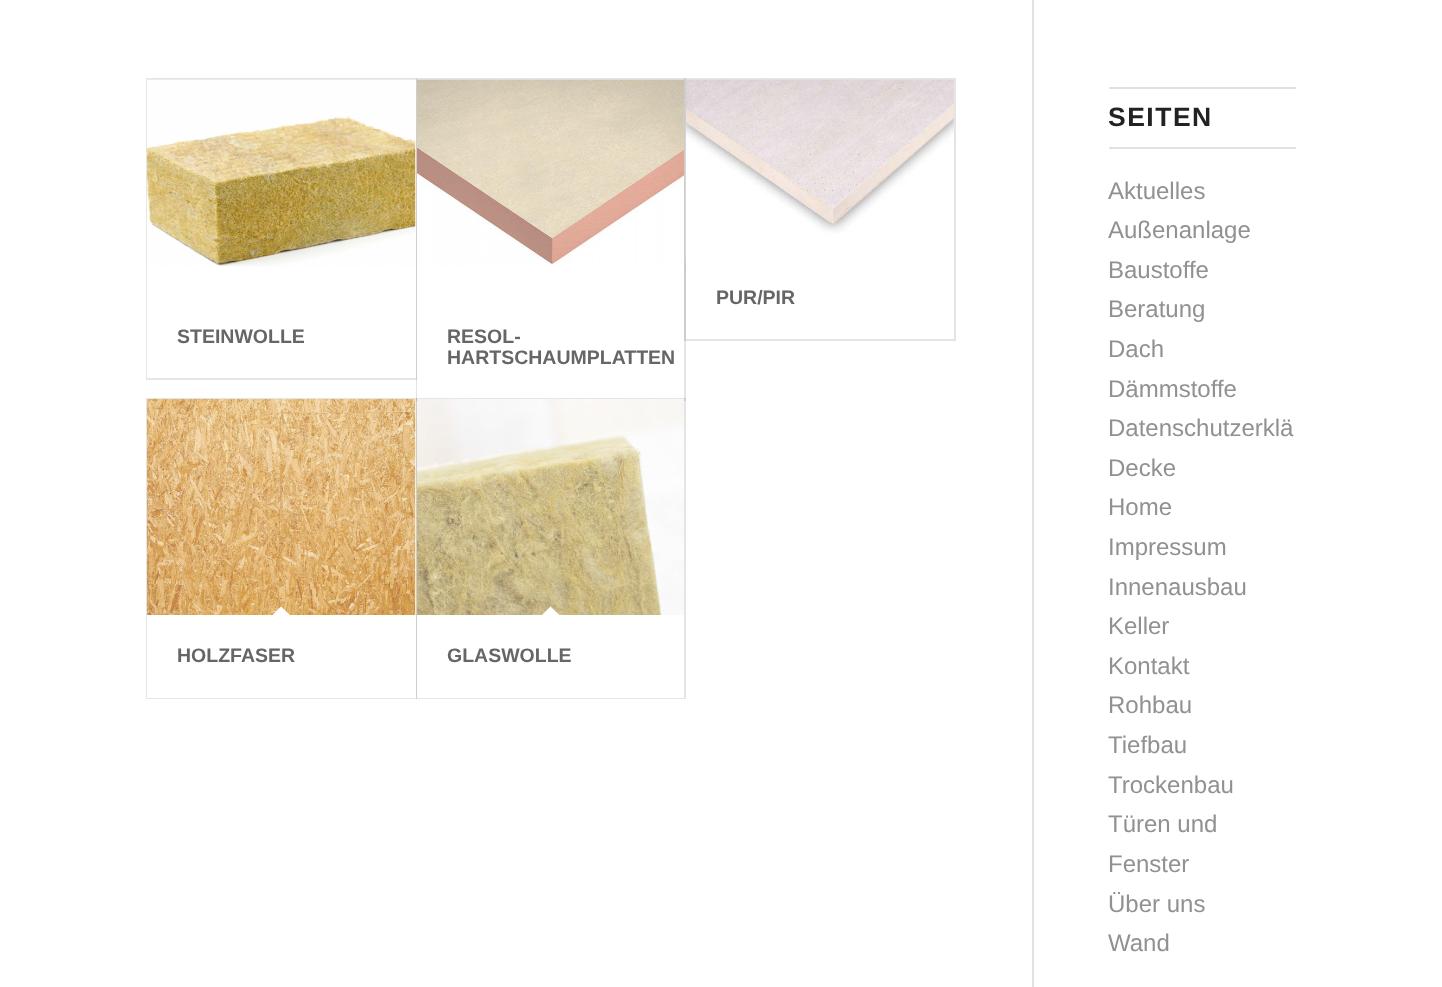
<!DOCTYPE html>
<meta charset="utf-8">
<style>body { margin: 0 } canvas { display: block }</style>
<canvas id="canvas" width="1442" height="987"></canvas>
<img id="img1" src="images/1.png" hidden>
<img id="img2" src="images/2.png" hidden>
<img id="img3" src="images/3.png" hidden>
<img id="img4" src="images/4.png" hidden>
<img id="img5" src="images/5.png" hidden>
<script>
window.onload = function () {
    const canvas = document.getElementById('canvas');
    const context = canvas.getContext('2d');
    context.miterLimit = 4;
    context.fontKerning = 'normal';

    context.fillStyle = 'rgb(255, 255, 255)';
    context.fillRect(0, 0, 1442, 987);
    context.strokeStyle = 'rgb(230, 230, 230)';
    context.lineWidth = 2;
    context.strokeRect(147, 79, 269, 300);
    context.strokeStyle = 'rgba(0, 0, 0, 0.1)';
    context.strokeRect(417, 79, 268, 321);
    context.strokeRect(685, 79, 270, 261);
    context.drawImage(document.getElementById('img1'), 685, 79, 269, 179);
    context.fillRect(147, 80, 269, 298);
    context.drawImage(document.getElementById('img2'), 147, 79, 269, 188);
    context.fillRect(417, 80, 1, 319);
    context.drawImage(document.getElementById('img3'), 417, 79, 267, 188);
    context.strokeRect(147, 399, 269, 299);
    context.fillRect(147, 399, 269, 299);
    context.drawImage(document.getElementById('img4'), 147, 399, 269, 216);
    context.beginPath();
    context.moveTo(281, 606.5);
    context.lineTo(292, 617);
    context.lineTo(281, 627.5);
    context.lineTo(270.5, 617);
    context.closePath();
    context.fill();
    context.strokeRect(417, 399, 268, 299);
    context.fillRect(417, 399, 267, 299);
    context.drawImage(document.getElementById('img5'), 417, 399, 267, 216);
    context.beginPath();
    context.moveTo(550.5, 606.5);
    context.lineTo(561.5, 617);
    context.lineTo(550.5, 627.5);
    context.lineTo(540, 617);
    context.closePath();
    context.fill();
    context.fillStyle = 'rgb(225, 225, 225)';
    context.fillRect(1032, 0, 2, 987);
    context.fillRect(1109, 87, 187, 2);
    context.fillRect(1109, 147, 187, 2);
    context.font = 'bold 19.5px Liberation Sans';
    context.fillStyle = 'rgb(102, 102, 102)';
    context.fillText('PUR/PIR', 716, 304);
    context.fillText('STEINWOLLE', 177, 343);
    context.fillText('RESOL-', 447, 343);
    context.fillText('HARTSCHAUMPLATTEN', 447, 364);
    context.fillText('HOLZFASER', 177, 662);
    context.fillText('GLASWOLLE', 447, 662);
    context.letterSpacing = '1.5px';
    context.font = 'bold 26.5px Liberation Sans';
    context.fillStyle = 'rgb(34, 34, 34)';
    context.fillText('SEITEN', 1108, 126);
    context.letterSpacing = '0px';
    context.font = '24px Liberation Sans';
    context.fillStyle = 'rgb(145, 145, 145)';
    context.fillText('Aktuelles', 1108, 199);
    context.fillText('Außenanlage', 1108, 238);
    context.fillText('Baustoffe', 1108, 278);
    context.fillText('Beratung', 1108, 317);
    context.fillText('Dach', 1108, 357);
    context.fillText('Dämmstoffe', 1108, 397);
    context.fillText('Datenschutzerklä', 1108, 436);
    context.fillText('Decke', 1108, 476);
    context.fillText('Home', 1108, 515);
    context.fillText('Impressum', 1108, 555);
    context.fillText('Innenausbau', 1108, 595);
    context.fillText('Keller', 1108, 634);
    context.fillText('Kontakt', 1108, 674);
    context.fillText('Rohbau', 1108, 713);
    context.fillText('Tiefbau', 1108, 753);
    context.fillText('Trockenbau', 1108, 793);
    context.fillText('Türen und', 1108, 832);
    context.fillText('Fenster', 1108, 872);
    context.fillText('Über uns', 1108, 912);
    context.fillText('Wand', 1108, 951);
};
</script>
